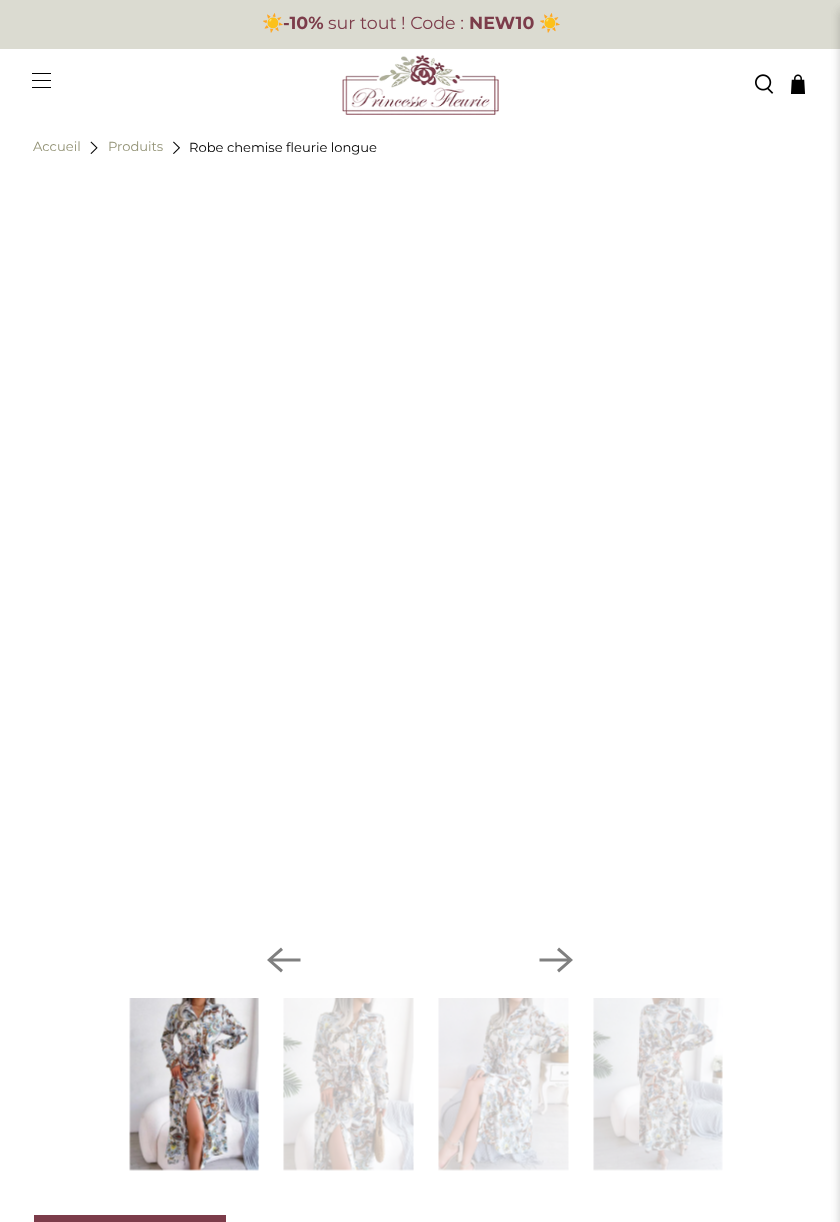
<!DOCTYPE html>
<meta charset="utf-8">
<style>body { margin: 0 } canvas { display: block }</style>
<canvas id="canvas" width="840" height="1222"></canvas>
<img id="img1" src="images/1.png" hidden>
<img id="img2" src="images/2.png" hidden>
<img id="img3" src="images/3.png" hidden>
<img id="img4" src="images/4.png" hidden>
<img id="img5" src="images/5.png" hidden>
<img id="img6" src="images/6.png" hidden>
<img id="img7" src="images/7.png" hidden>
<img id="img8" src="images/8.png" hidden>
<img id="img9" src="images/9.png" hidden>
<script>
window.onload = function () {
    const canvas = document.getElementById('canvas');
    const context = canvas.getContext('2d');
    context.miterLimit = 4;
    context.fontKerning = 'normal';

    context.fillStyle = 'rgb(255, 255, 255)';
    context.fillRect(0, 0, 840, 1222);
    context.fillStyle = 'rgb(0, 0, 0)';
    context.fillRect(32, 73, 19, 1);
    context.fillRect(32, 80, 19, 1);
    context.fillRect(32, 87, 19, 1);
    context.drawImage(document.getElementById('img1'), 342, 55, 157, 60);
    context.drawImage(document.getElementById('img2'), 755, 74, 19, 20);
    context.drawImage(document.getElementById('img3'), 790, 74, 15, 20);
    context.fillStyle = 'rgb(219, 219, 209)';
    context.fillRect(0, 0, 840, 49);
    context.fillStyle = 'rgba(10, 10, 10, 0.1)';
    context.filter = 'blur(5px)';
    context.beginPath();
    context.rect(840, 10, 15, 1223);
    context.fill();
    context.filter = 'none';
    context.filter = 'blur(5px)';
    context.beginPath();
    context.rect(840, 10, 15, 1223);
    context.fill();
    context.filter = 'none';
    context.drawImage(document.getElementById('img4'), 90, 141, 8, 13);
    context.drawImage(document.getElementById('img5'), 173, 141, 7, 13);
    context.fillStyle = 'rgb(128, 128, 128)';
    context.beginPath();
    context.moveTo(300.5, 958.5);
    context.lineTo(273, 958.5);
    context.lineTo(283, 950);
    context.lineTo(281, 947.5);
    context.lineTo(267, 960);
    context.lineTo(281, 972.5);
    context.lineTo(283, 970);
    context.lineTo(273, 961.5);
    context.lineTo(300.5, 961.5);
    context.closePath();
    context.fill();
    context.beginPath();
    context.moveTo(539.5, 961.5);
    context.lineTo(567, 961.5);
    context.lineTo(557, 970);
    context.lineTo(559, 972.5);
    context.lineTo(573, 960);
    context.lineTo(559, 947.5);
    context.lineTo(557, 950);
    context.lineTo(567, 958.5);
    context.lineTo(539.5, 958.5);
    context.closePath();
    context.fill();
    context.drawImage(document.getElementById('img6'), 129, 998, 131, 173);
    context.drawImage(document.getElementById('img7'), 283, 998, 131, 173);
    context.drawImage(document.getElementById('img8'), 438, 998, 131, 173);
    context.drawImage(document.getElementById('img9'), 593, 998, 130, 173);
    context.fillStyle = 'rgb(124, 60, 74)';
    context.fillRect(34, 1215, 192, 7);
    context.font = '17.5px Noto Color Emoji';
    context.fillText('☀️', 262, 29);
    context.font = 'bold 17.5px Montserrat';
    context.fillText('-10%', 283, 29);
    context.font = '17.5px Montserrat';
    context.fillText('sur tout ! Code :', 328, 29);
    context.font = 'bold 17.5px Montserrat';
    context.fillText('NEW10', 469, 29);
    context.font = '17.5px Noto Color Emoji';
    context.fillText('☀️', 539, 29);
    context.font = '13.1px Montserrat';
    context.fillStyle = 'rgb(147, 147, 118)';
    context.fillText('Accueil', 33, 151);
    context.fillText('Produits', 108, 151);
    context.fillStyle = 'rgb(0, 0, 0)';
    context.fillText('Robe chemise fleurie longue', 189, 152);
};
</script>
